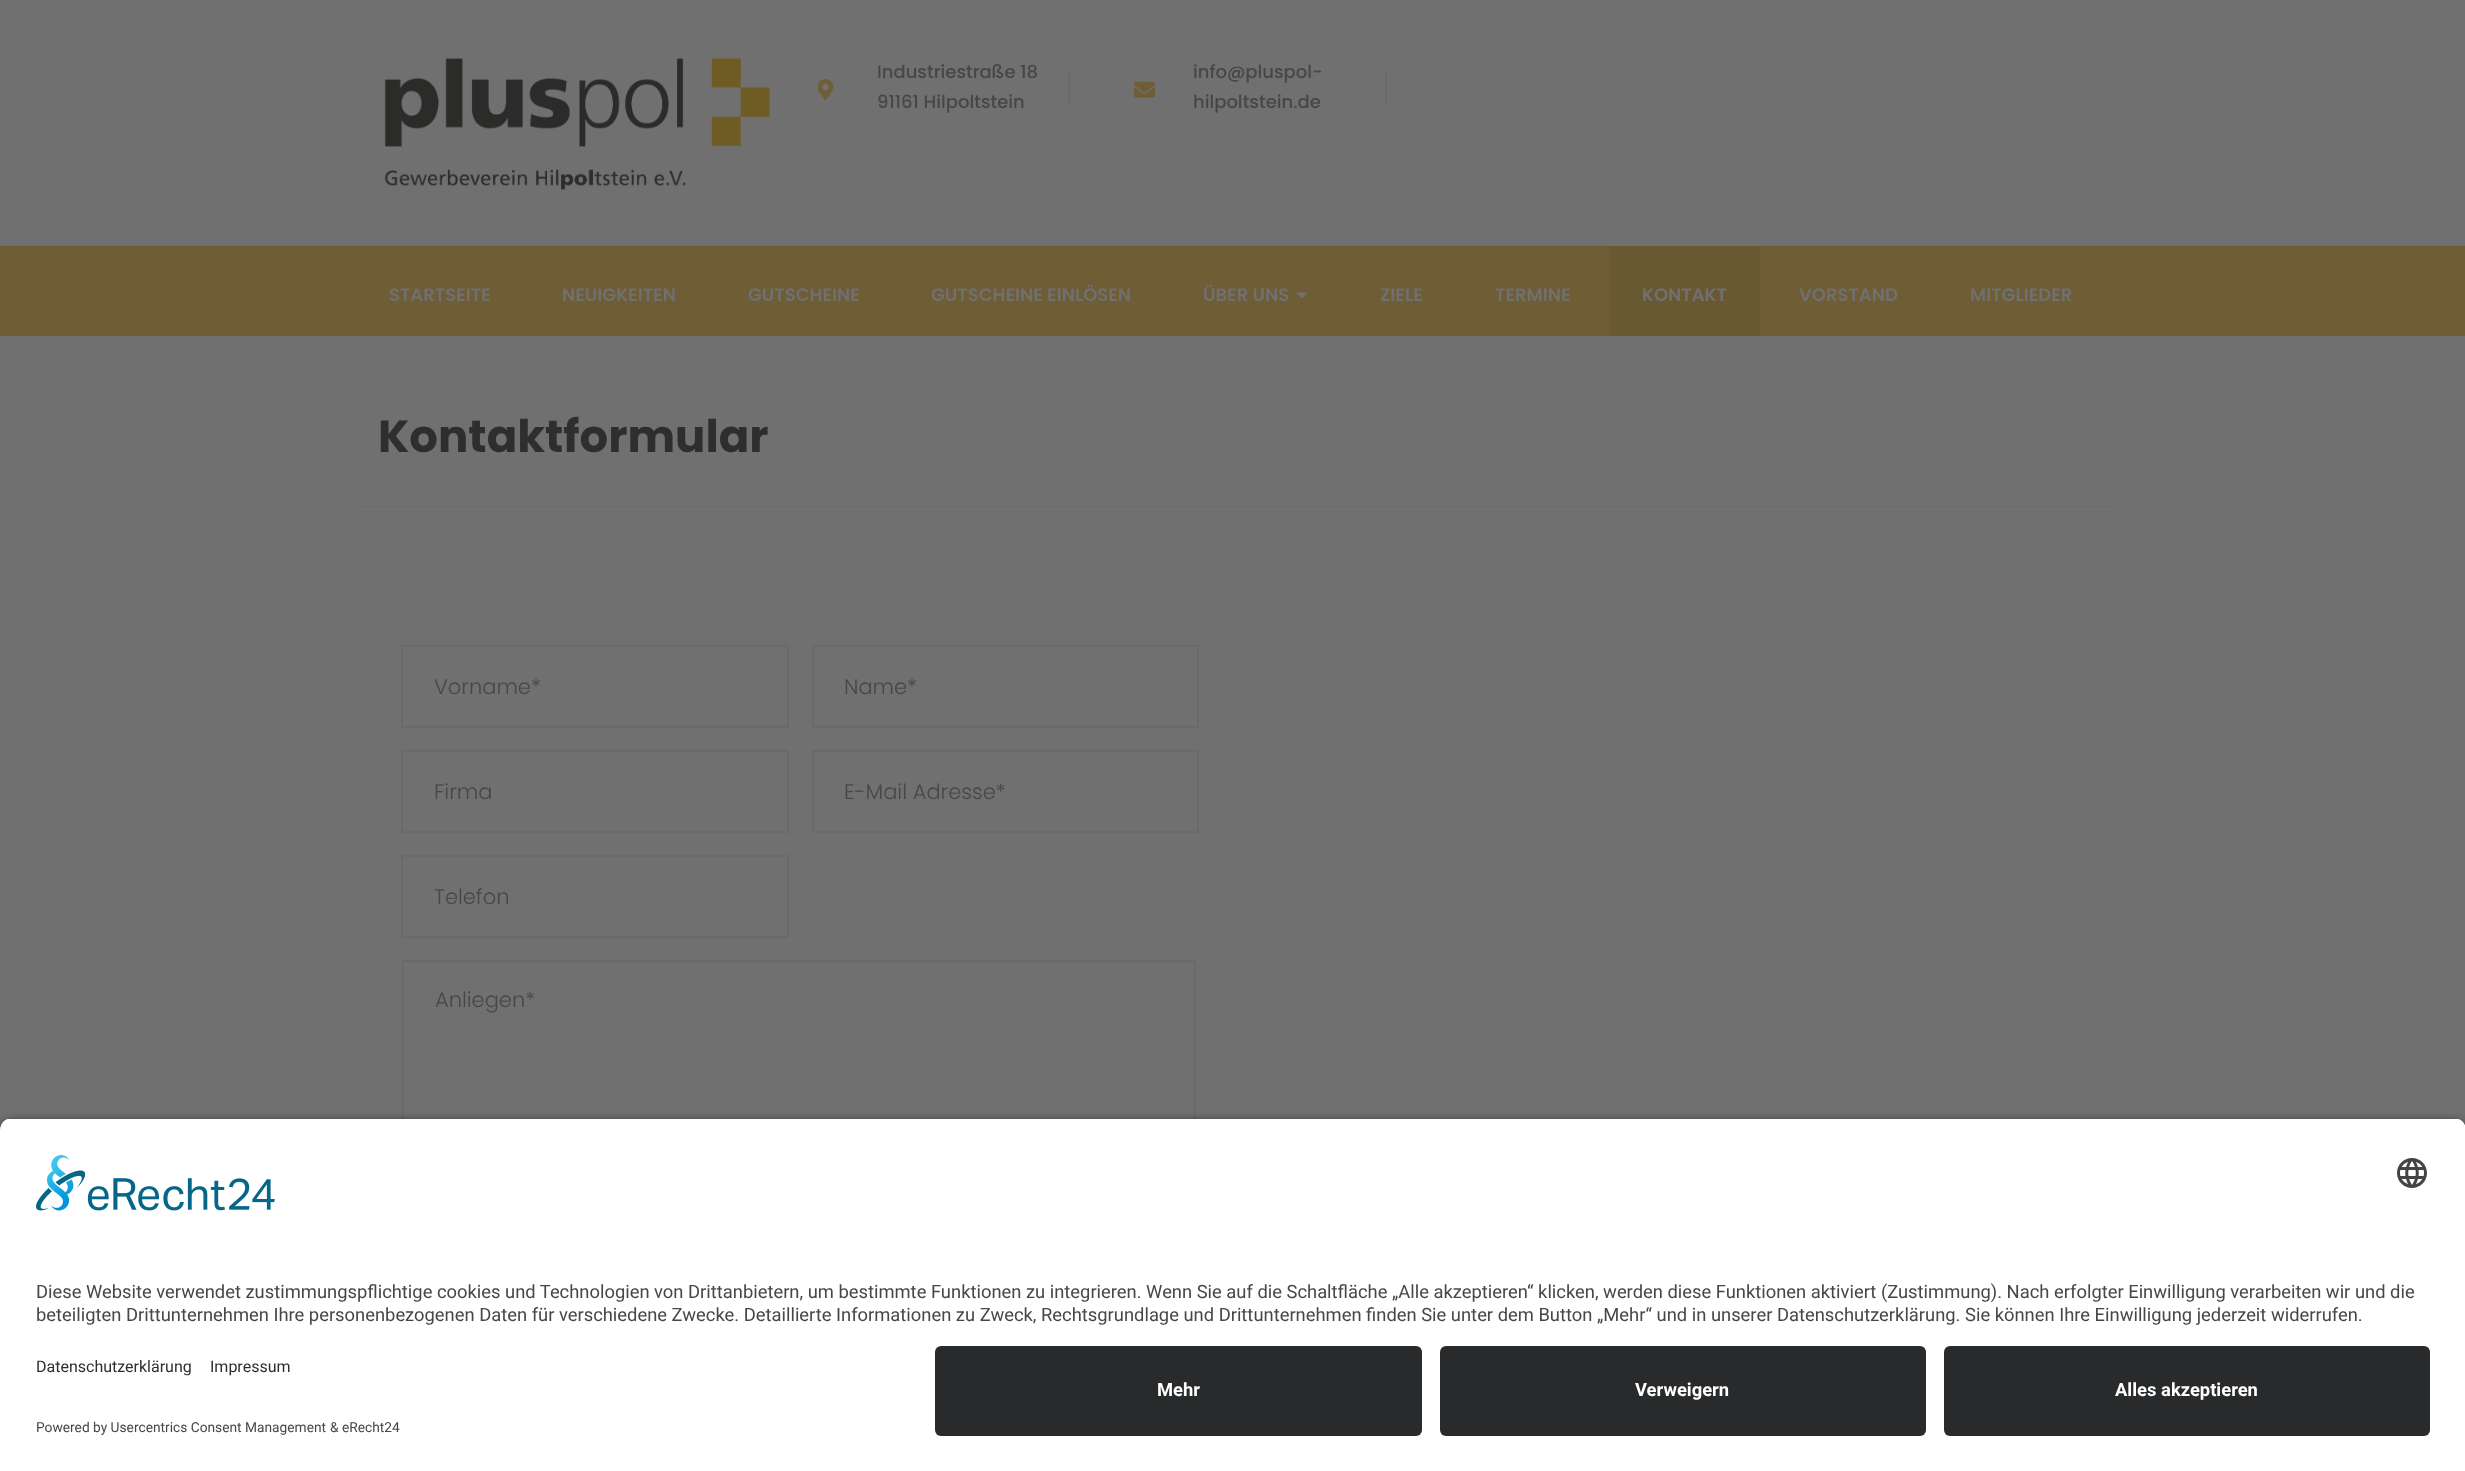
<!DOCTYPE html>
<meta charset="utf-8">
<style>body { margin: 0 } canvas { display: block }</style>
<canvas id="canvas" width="2465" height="1471"></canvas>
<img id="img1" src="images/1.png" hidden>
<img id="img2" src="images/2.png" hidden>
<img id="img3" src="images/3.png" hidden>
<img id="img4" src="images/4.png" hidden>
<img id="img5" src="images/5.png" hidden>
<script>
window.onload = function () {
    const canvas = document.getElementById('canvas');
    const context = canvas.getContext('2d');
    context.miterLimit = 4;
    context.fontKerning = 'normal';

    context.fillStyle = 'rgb(112, 112, 112)';
    context.fillRect(0, 0, 2465, 1471);
    context.drawImage(document.getElementById('img1'), 384, 57, 387, 133);
    context.drawImage(document.getElementById('img2'), 818, 79, 16, 22);
    context.fillStyle = 'rgb(107, 107, 107)';
    context.fillRect(1068, 69, 2, 38);
    context.drawImage(document.getElementById('img3'), 1134, 81, 21, 17);
    context.fillRect(1385, 69, 2, 38);
    context.fillStyle = 'rgb(110, 93, 53)';
    context.fillRect(0, 246, 2465, 90);
    context.fillStyle = 'rgb(112, 112, 112)';
    context.beginPath();
    context.moveTo(1296, 292.5);
    context.lineTo(1308, 292.5);
    context.lineTo(1302, 298.5);
    context.closePath();
    context.fill();
    context.fillStyle = 'rgb(105, 89, 51)';
    context.fillRect(1610, 246, 150, 90);
    context.fillStyle = 'rgb(107, 107, 107)';
    context.fillRect(356, 506, 1755, 1);
    context.strokeStyle = 'rgb(106, 106, 106)';
    context.lineWidth = 2;
    context.strokeRect(402, 646, 386, 81);
    context.strokeRect(813, 646, 385, 81);
    context.strokeRect(402, 751, 386, 81);
    context.strokeRect(813, 751, 385, 81);
    context.strokeRect(402, 856, 386, 81);
    context.strokeRect(403, 961, 792, 301);
    context.fillStyle = 'rgba(0, 0, 0, 0.8)';
    context.filter = 'blur(5px)';
    context.beginPath();
    context.roundRect(0, 1122, 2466, 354, 12);
    context.fill();
    context.filter = 'none';
    context.save();
    context.beginPath();
    context.moveTo(12, 1118);
    context.lineTo(2454, 1118);
    context.bezierCurveTo(2460.5, 1118, 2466, 1123.5, 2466, 1130);
    context.lineTo(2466, 1334);
    context.lineTo(0, 1334);
    context.lineTo(0, 1130);
    context.bezierCurveTo(0, 1123.5, 5.5, 1118, 12, 1118);
    context.closePath();
    context.clip();
    context.fillStyle = 'rgb(255, 255, 255)';
    context.fillRect(0, 1119, 2465, 215);
    context.restore();
    context.drawImage(document.getElementById('img4'), 36, 1155, 239, 56);
    context.drawImage(document.getElementById('img5'), 2397, 1158, 30, 30);
    context.fillStyle = 'rgb(255, 255, 255)';
    context.fillRect(0, 1334, 2465, 137);
    context.fillStyle = 'rgb(41, 42, 43)';
    context.beginPath();
    context.roundRect(935, 1346, 487, 90, 6);
    context.fill();
    context.beginPath();
    context.roundRect(1440, 1346, 486, 90, 6);
    context.fill();
    context.beginPath();
    context.roundRect(1944, 1346, 486, 90, 6);
    context.fill();
    context.font = '500 18px Poppins';
    context.fillStyle = 'rgb(71, 71, 71)';
    context.fillText('Industriestraße 18', 877, 78);
    context.fillText('91161 Hilpoltstein', 877, 108);
    context.fillText('info@pluspol-', 1193, 78);
    context.fillText('hilpoltstein.de', 1193, 108);
    context.font = '600 18px Poppins';
    context.fillStyle = 'rgb(112, 112, 112)';
    context.fillText('STARTSEITE', 389, 301);
    context.fillText('NEUIGKEITEN', 562, 301);
    context.fillText('GUTSCHEINE', 748, 301);
    context.fillText('GUTSCHEINE EINLÖSEN', 931, 301);
    context.fillText('ÜBER UNS', 1203, 301);
    context.fillText('ZIELE', 1380, 301);
    context.fillText('TERMINE', 1495, 301);
    context.fillText('KONTAKT', 1642, 301);
    context.fillText('VORSTAND', 1799, 301);
    context.fillText('MITGLIEDER', 1970, 301);
    context.font = 'bold 45px Poppins';
    context.fillStyle = 'rgb(46, 46, 46)';
    context.fillText('Kontaktformular', 378, 452);
    context.font = '300 21px Poppins';
    context.fillStyle = 'rgb(71, 71, 71)';
    context.fillText('Vorname*', 434, 694);
    context.fillText('Name*', 844, 694);
    context.fillText('Firma', 434, 799);
    context.fillText('E-Mail Adresse*', 844, 799);
    context.fillText('Telefon', 434, 904);
    context.fillText('Anliegen*', 435, 1007);
    context.font = '18.38px Roboto';
    context.fillText('Diese Website verwendet zustimmungspflichtige cookies und Technologien von Drittanbietern, um bestimmte Funktionen zu integrieren. Wenn Sie auf die Schaltfläche „Alle akzeptieren“ klicken, werden diese Funktionen aktiviert (Zustimmung). Nach erfolgter Einwilligung verarbeiten wir und die', 36, 1298);
    context.fillText('beteiligten Drittunternehmen Ihre personenbezogenen Daten für verschiedene Zwecke. Detaillierte Informationen zu Zweck, Rechtsgrundlage und Drittunternehmen finden Sie unter dem Button „Mehr“ und in unserer Datenschutzerklärung. Sie können Ihre Einwilligung jederzeit widerrufen.', 36, 1321);
    context.font = '16px Roboto';
    context.fillStyle = 'rgb(46, 46, 46)';
    context.fillText('Datenschutzerklärung', 36, 1372);
    context.fillText('Impressum', 210, 1372);
    context.font = '13.75px Roboto';
    context.fillStyle = 'rgb(71, 71, 71)';
    context.fillText('Powered by Usercentrics Consent Management', 36, 1432);
    context.fillText('& eRecht24', 330, 1432);
    context.font = 'bold 18.38px Roboto';
    context.fillStyle = 'rgb(255, 255, 255)';
    context.fillText('Mehr', 1157, 1396);
    context.fillText('Verweigern', 1635, 1396);
    context.fillText('Alles akzeptieren', 2115, 1396);
};
</script>
